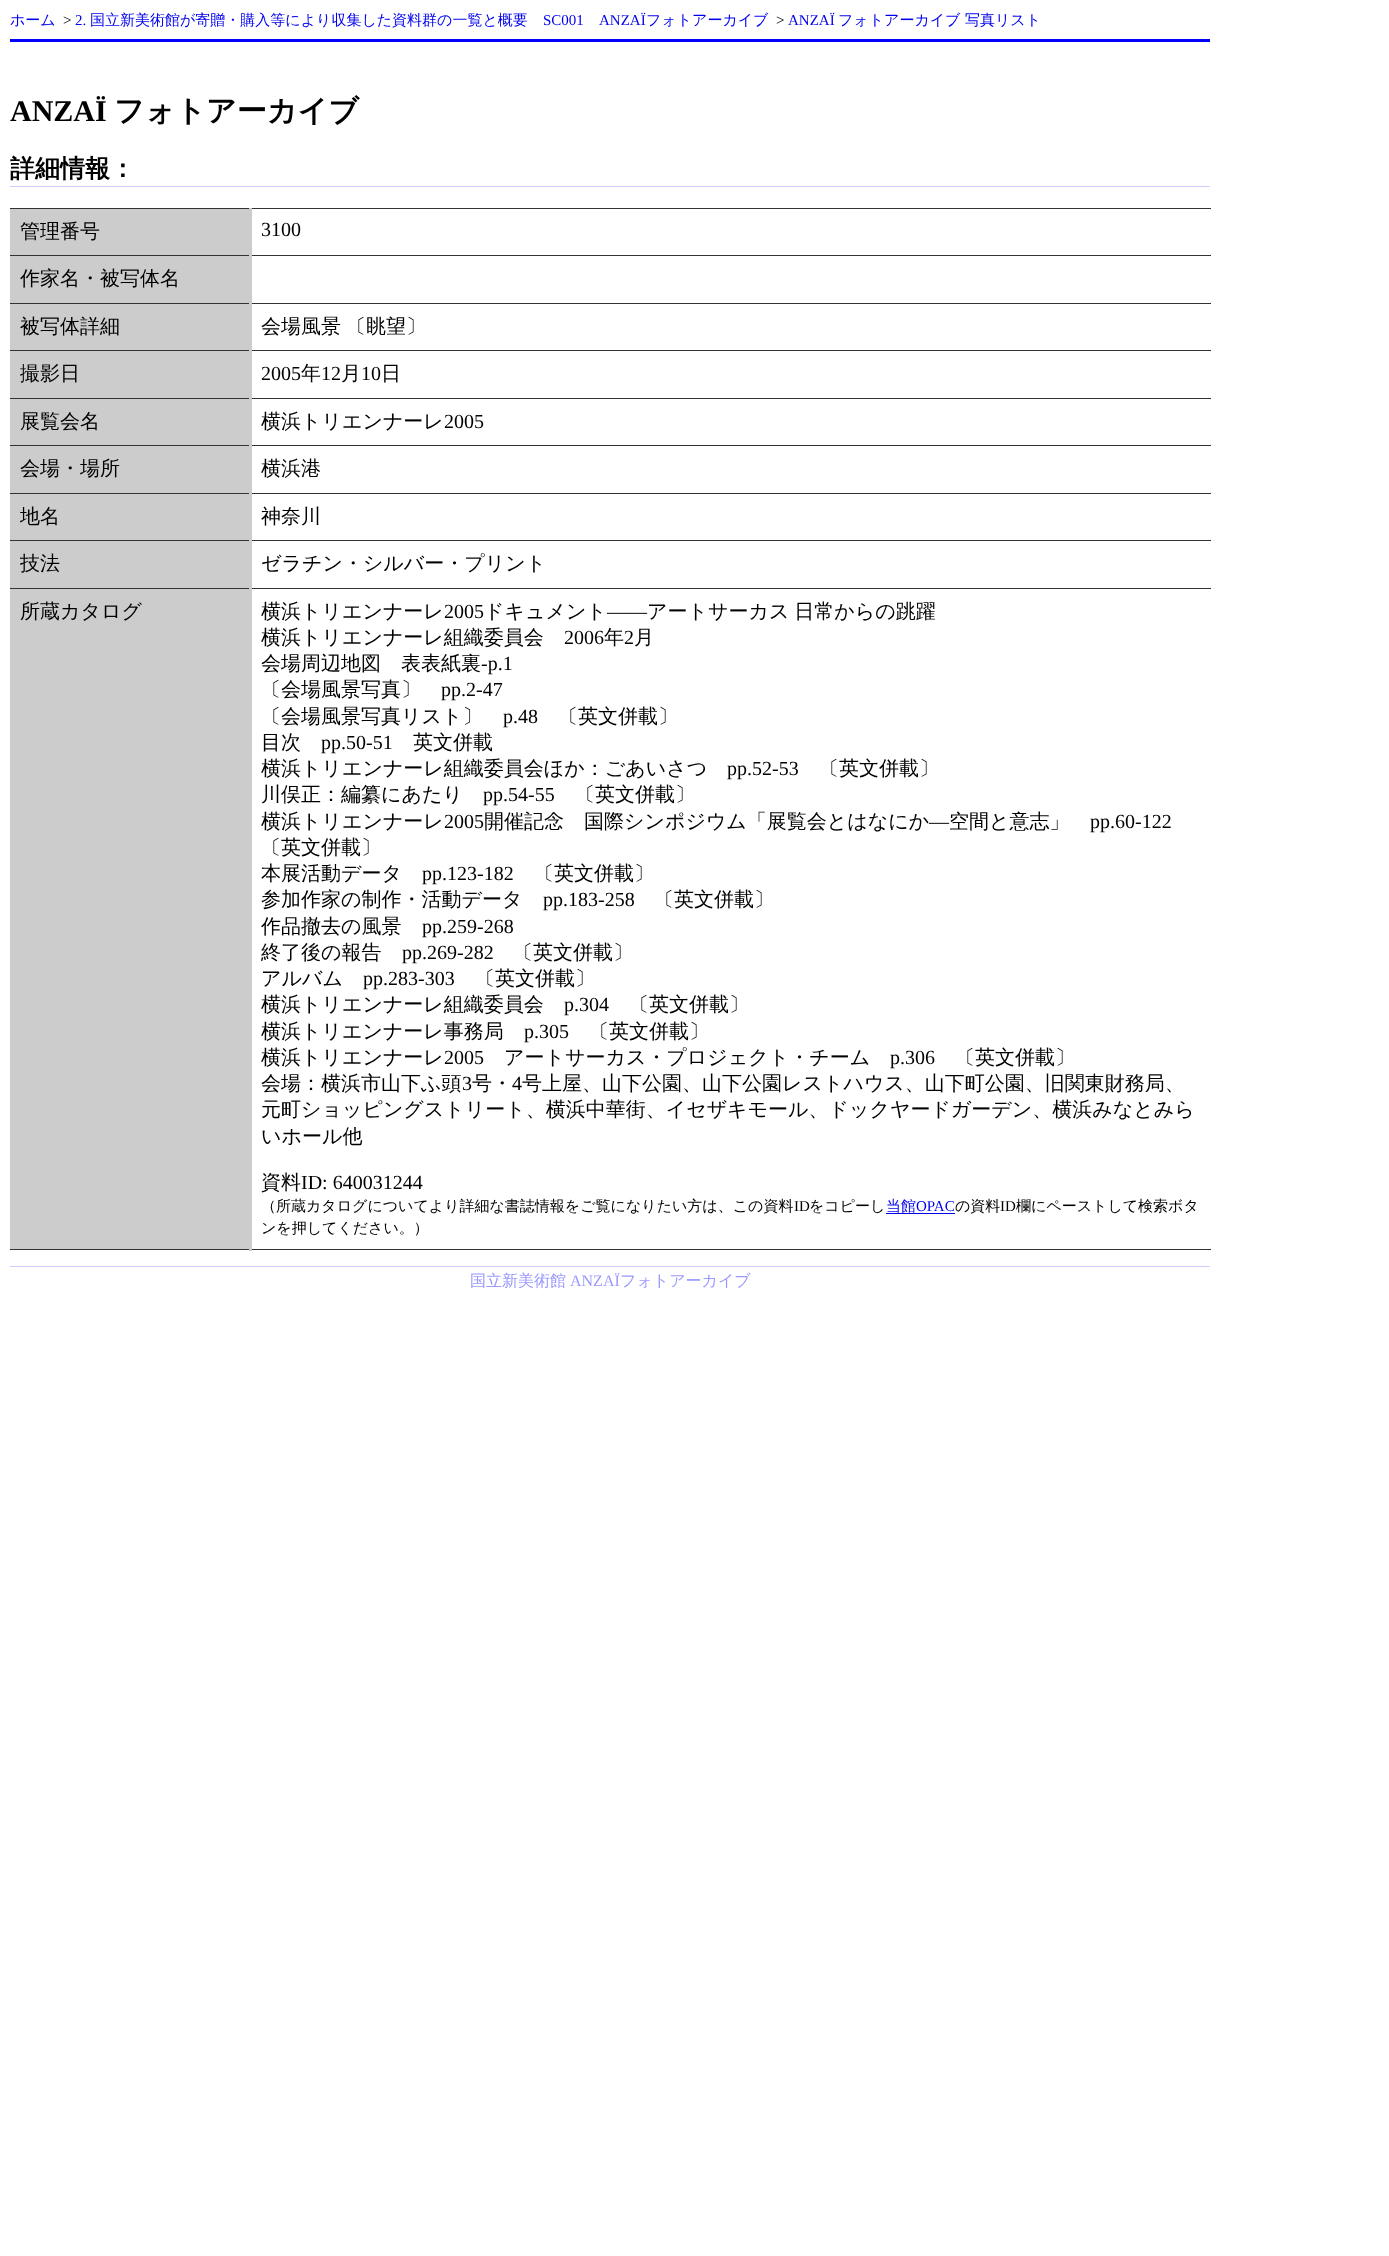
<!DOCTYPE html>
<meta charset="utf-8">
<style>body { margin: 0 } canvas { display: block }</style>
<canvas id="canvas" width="1389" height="2256"></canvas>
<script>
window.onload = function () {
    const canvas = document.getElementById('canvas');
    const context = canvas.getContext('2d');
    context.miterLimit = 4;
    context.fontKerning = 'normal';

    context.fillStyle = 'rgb(255, 255, 255)';
    context.fillRect(0, 0, 1389, 2256);
    context.fillStyle = 'rgb(0, 0, 255)';
    context.fillRect(10, 39, 1200, 3);
    context.fillStyle = 'rgb(204, 204, 255)';
    context.fillRect(10, 186, 1200, 1);
    context.fillStyle = 'rgb(204, 204, 204)';
    context.fillRect(10, 209, 239, 1040);
    context.fillStyle = 'rgb(51, 51, 51)';
    context.fillRect(10, 208, 1201, 1);
    context.fillRect(10, 255, 1201, 1);
    context.fillRect(10, 303, 1201, 1);
    context.fillRect(10, 350, 1201, 1);
    context.fillRect(10, 398, 1201, 1);
    context.fillRect(10, 445, 1201, 1);
    context.fillRect(10, 493, 1201, 1);
    context.fillRect(10, 540, 1201, 1);
    context.fillRect(10, 588, 1201, 1);
    context.fillRect(10, 1249, 1201, 1);
    context.fillStyle = 'rgb(204, 204, 204)';
    context.fillRect(249, 208, 3, 1043);
    context.fillStyle = 'rgb(0, 0, 238)';
    context.fillRect(886, 1213, 69, 1);
    context.fillStyle = 'rgb(204, 204, 255)';
    context.fillRect(10, 1266, 1200, 1);
    context.font = '500 15px WenQuanYi Zen Hei';
    context.fillStyle = 'rgb(0, 0, 238)';
    context.fillText('ホーム', 10, 25);
    context.font = '15px Liberation Serif';
    context.fillStyle = 'rgb(0, 0, 0)';
    context.fillText('>', 63, 25);
    context.fillStyle = 'rgb(0, 0, 238)';
    context.fillText('2.', 75, 25);
    context.font = '500 15px WenQuanYi Zen Hei';
    context.fillText('国立新美術館が寄贈・購入等により収集した資料群の一覧と概要', 90, 25);
    context.font = '15px Liberation Serif';
    context.fillText('SC001', 543, 25);
    context.fillText('ANZAÏ', 599, 25);
    context.font = '500 15px WenQuanYi Zen Hei';
    context.fillText('フォトアーカイブ', 646, 25);
    context.font = '15px Liberation Serif';
    context.fillStyle = 'rgb(0, 0, 0)';
    context.fillText('>', 776, 25);
    context.fillStyle = 'rgb(0, 0, 238)';
    context.fillText('ANZAÏ', 788, 25);
    context.font = '500 15px WenQuanYi Zen Hei';
    context.fillText('フォトアーカイブ 写真リスト', 838, 25);
    context.font = 'bold 30px Liberation Serif';
    context.fillStyle = 'rgb(0, 0, 0)';
    context.fillText('ANZAÏ', 10, 121);
    context.font = 'bold 30px WenQuanYi Zen Hei';
    context.fillText('フォトアーカイブ', 114, 121);
    context.font = 'bold 25px WenQuanYi Zen Hei';
    context.fillText('詳細情報：', 10, 177);
    context.font = '500 20px WenQuanYi Zen Hei';
    context.fillText('管理番号', 20, 238);
    context.font = '20px Liberation Serif';
    context.fillText('3100', 261, 236);
    context.font = '500 20px WenQuanYi Zen Hei';
    context.fillText('作家名・被写体名', 20, 285);
    context.fillText('被写体詳細', 20, 333);
    context.wordSpacing = '-1px';
    context.fillText('会場風景 〔眺望〕', 261, 333);
    context.wordSpacing = '0px';
    context.fillText('撮影日', 20, 380);
    context.font = '20px Liberation Serif';
    context.fillText('2005', 261, 380);
    context.font = '500 20px WenQuanYi Zen Hei';
    context.fillText('年', 301, 380);
    context.font = '20px Liberation Serif';
    context.fillText('12', 321, 380);
    context.font = '500 20px WenQuanYi Zen Hei';
    context.fillText('月', 341, 380);
    context.font = '20px Liberation Serif';
    context.fillText('10', 361, 380);
    context.font = '500 20px WenQuanYi Zen Hei';
    context.fillText('日', 381, 380);
    context.fillText('展覧会名', 20, 428);
    context.fillText('横浜トリエンナーレ', 261, 428);
    context.font = '20px Liberation Serif';
    context.fillText('2005', 444, 428);
    context.font = '500 20px WenQuanYi Zen Hei';
    context.fillText('会場・場所', 20, 475);
    context.fillText('横浜港', 261, 475);
    context.fillText('地名', 20, 523);
    context.fillText('神奈川', 261, 523);
    context.fillText('技法', 20, 570);
    context.fillText('ゼラチン・シルバー・プリント', 261, 570);
    context.fillText('所蔵カタログ', 20, 618);
    context.fillText('横浜トリエンナーレ', 261, 618);
    context.font = '20px Liberation Serif';
    context.fillText('2005', 444, 618);
    context.font = '500 20px WenQuanYi Zen Hei';
    context.fillText('ドキュメント', 484, 618);
    context.font = '20px Liberation Serif';
    context.fillText('――', 607, 618);
    context.wordSpacing = '-1px';
    context.font = '500 20px WenQuanYi Zen Hei';
    context.fillText('アートサーカス 日常からの跳躍', 647, 618);
    context.wordSpacing = '0px';
    context.fillText('横浜トリエンナーレ組織委員会', 261, 644);
    context.font = '20px Liberation Serif';
    context.fillText('2006', 564, 644);
    context.font = '500 20px WenQuanYi Zen Hei';
    context.fillText('年', 604, 644);
    context.font = '20px Liberation Serif';
    context.fillText('2', 624, 644);
    context.font = '500 20px WenQuanYi Zen Hei';
    context.fillText('月', 634, 644);
    context.fillText('会場周辺地図　表表紙裏', 261, 670);
    context.font = '20px Liberation Serif';
    context.fillText('-p.1', 481, 670);
    context.font = '500 20px WenQuanYi Zen Hei';
    context.fillText('〔会場風景写真〕', 261, 696);
    context.font = '20px Liberation Serif';
    context.fillText('pp.2-47', 441, 696);
    context.font = '500 20px WenQuanYi Zen Hei';
    context.fillText('〔会場風景写真リスト〕', 261, 723);
    context.font = '20px Liberation Serif';
    context.fillText('p.48', 503, 723);
    context.font = '500 20px WenQuanYi Zen Hei';
    context.fillText('〔英文併載〕', 558, 723);
    context.fillText('目次', 261, 749);
    context.font = '20px Liberation Serif';
    context.fillText('pp.50-51', 321, 749);
    context.font = '500 20px WenQuanYi Zen Hei';
    context.fillText('英文併載', 413, 749);
    context.fillText('横浜トリエンナーレ組織委員会ほか：ごあいさつ', 261, 775);
    context.font = '20px Liberation Serif';
    context.fillText('pp.52-53', 727, 775);
    context.font = '500 20px WenQuanYi Zen Hei';
    context.fillText('〔英文併載〕', 819, 775);
    context.fillText('川俣正：編纂にあたり', 261, 801);
    context.font = '20px Liberation Serif';
    context.fillText('pp.54-55', 483, 801);
    context.font = '500 20px WenQuanYi Zen Hei';
    context.fillText('〔英文併載〕', 575, 801);
    context.fillText('横浜トリエンナーレ', 261, 828);
    context.font = '20px Liberation Serif';
    context.fillText('2005', 444, 828);
    context.font = '500 20px WenQuanYi Zen Hei';
    context.fillText('開催記念　国際シンポジウム「展覧会とはなにか', 484, 828);
    context.font = '20px Liberation Serif';
    context.fillText('―', 929, 828);
    context.font = '500 20px WenQuanYi Zen Hei';
    context.fillText('空間と意志」', 949, 828);
    context.font = '20px Liberation Serif';
    context.fillText('pp.60-122', 1090, 828);
    context.font = '500 20px WenQuanYi Zen Hei';
    context.fillText('〔英文併載〕', 261, 854);
    context.fillText('本展活動データ', 261, 880);
    context.font = '20px Liberation Serif';
    context.fillText('pp.123-182', 422, 880);
    context.font = '500 20px WenQuanYi Zen Hei';
    context.fillText('〔英文併載〕', 534, 880);
    context.fillText('参加作家の制作・活動データ', 261, 906);
    context.font = '20px Liberation Serif';
    context.fillText('pp.183-258', 543, 906);
    context.font = '500 20px WenQuanYi Zen Hei';
    context.fillText('〔英文併載〕', 654, 906);
    context.fillText('作品撤去の風景', 261, 933);
    context.font = '20px Liberation Serif';
    context.fillText('pp.259-268', 422, 933);
    context.font = '500 20px WenQuanYi Zen Hei';
    context.fillText('終了後の報告', 261, 959);
    context.font = '20px Liberation Serif';
    context.fillText('pp.269-282', 402, 959);
    context.font = '500 20px WenQuanYi Zen Hei';
    context.fillText('〔英文併載〕', 513, 959);
    context.fillText('アルバム', 261, 985);
    context.font = '20px Liberation Serif';
    context.fillText('pp.283-303', 363, 985);
    context.font = '500 20px WenQuanYi Zen Hei';
    context.fillText('〔英文併載〕', 475, 985);
    context.fillText('横浜トリエンナーレ組織委員会', 261, 1011);
    context.font = '20px Liberation Serif';
    context.fillText('p.304', 564, 1011);
    context.font = '500 20px WenQuanYi Zen Hei';
    context.fillText('〔英文併載〕', 629, 1011);
    context.fillText('横浜トリエンナーレ事務局', 261, 1038);
    context.font = '20px Liberation Serif';
    context.fillText('p.305', 524, 1038);
    context.font = '500 20px WenQuanYi Zen Hei';
    context.fillText('〔英文併載〕', 589, 1038);
    context.fillText('横浜トリエンナーレ', 261, 1064);
    context.font = '20px Liberation Serif';
    context.fillText('2005', 444, 1064);
    context.font = '500 20px WenQuanYi Zen Hei';
    context.fillText('アートサーカス・プロジェクト・チーム', 504, 1064);
    context.font = '20px Liberation Serif';
    context.fillText('p.306', 890, 1064);
    context.font = '500 20px WenQuanYi Zen Hei';
    context.fillText('〔英文併載〕', 955, 1064);
    context.fillText('会場：横浜市山下ふ頭', 261, 1090);
    context.font = '20px Liberation Serif';
    context.fillText('3', 462, 1090);
    context.font = '500 20px WenQuanYi Zen Hei';
    context.fillText('号・', 472, 1090);
    context.font = '20px Liberation Serif';
    context.fillText('4', 512, 1090);
    context.font = '500 20px WenQuanYi Zen Hei';
    context.fillText('号上屋、山下公園、山下公園レストハウス、山下町公園、旧関東財務局、', 522, 1090);
    context.fillText('元町ショッピングストリート、横浜中華街、イセザキモール、ドックヤードガーデン、横浜みなとみら', 261, 1116);
    context.fillText('いホール他', 261, 1143);
    context.fillText('資料', 261, 1189);
    context.font = '20px Liberation Serif';
    context.fillText('ID: 640031244', 301, 1189);
    context.font = '500 15px WenQuanYi Zen Hei';
    context.fillText('（所蔵カタログについてより詳細な書誌情報をご覧になりたい方は、この資料', 261, 1211);
    context.font = '15px Liberation Serif';
    context.fillText('ID', 794, 1211);
    context.font = '500 15px WenQuanYi Zen Hei';
    context.fillText('をコピーし', 809, 1211);
    context.fillStyle = 'rgb(0, 0, 238)';
    context.fillText('当館', 886, 1211);
    context.font = '15px Liberation Serif';
    context.fillText('OPAC', 916, 1211);
    context.font = '500 15px WenQuanYi Zen Hei';
    context.fillStyle = 'rgb(0, 0, 0)';
    context.fillText('の資料', 955, 1211);
    context.font = '15px Liberation Serif';
    context.fillText('ID', 1000, 1211);
    context.font = '500 15px WenQuanYi Zen Hei';
    context.fillText('欄にペーストして検索ボタ', 1016, 1211);
    context.fillText('ンを押してください。）', 261, 1233);
    context.font = '500 16px WenQuanYi Zen Hei';
    context.fillStyle = 'rgb(153, 153, 255)';
    context.fillText('国立新美術館', 470, 1286);
    context.font = '16px Liberation Serif';
    context.fillText('ANZAÏ', 570, 1286);
    context.font = '500 16px WenQuanYi Zen Hei';
    context.fillText('フォトアーカイブ', 620, 1286);
};
</script>
